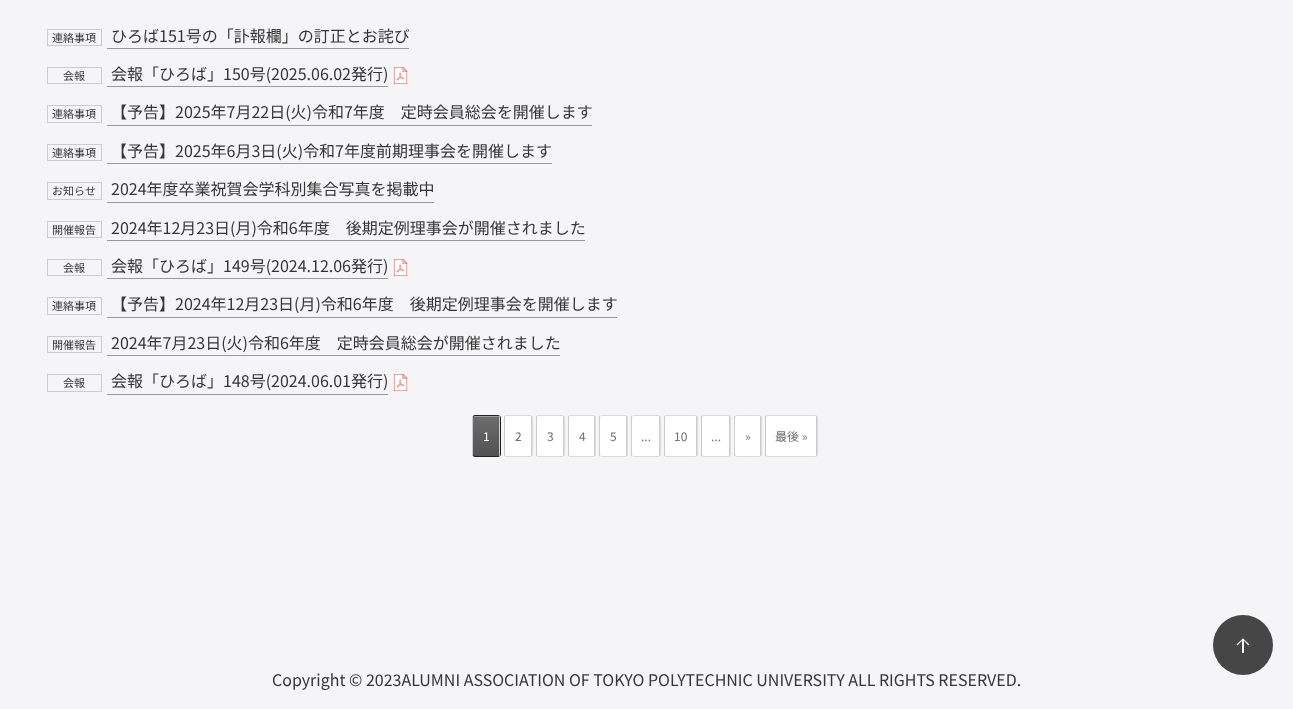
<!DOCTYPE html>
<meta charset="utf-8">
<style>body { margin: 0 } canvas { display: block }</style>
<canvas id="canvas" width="1293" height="709"></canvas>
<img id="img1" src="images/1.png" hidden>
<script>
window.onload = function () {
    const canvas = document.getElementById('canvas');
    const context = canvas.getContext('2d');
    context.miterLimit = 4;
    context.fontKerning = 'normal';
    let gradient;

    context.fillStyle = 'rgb(245, 245, 247)';
    context.fillRect(0, 0, 1293, 709);
    context.strokeStyle = 'rgb(204, 204, 204)';
    context.strokeRect(47.5, 29.5, 54, 16);
    context.fillStyle = 'rgb(153, 153, 153)';
    context.fillRect(107, 48, 302, 1);
    context.strokeRect(47.5, 67.5, 54, 16);
    context.drawImage(document.getElementById('img1'), 393, 67, 15, 18);
    context.fillRect(107, 86, 281, 1);
    context.strokeRect(47.5, 105.5, 54, 17);
    context.fillRect(107, 125, 485, 1);
    context.strokeRect(47.5, 144.5, 54, 16);
    context.fillRect(107, 163, 445, 1);
    context.strokeRect(47.5, 182.5, 54, 17);
    context.fillRect(107, 202, 327, 1);
    context.strokeRect(47.5, 221.5, 54, 16);
    context.fillRect(107, 240, 478, 1);
    context.strokeRect(47.5, 259.5, 54, 16);
    context.drawImage(document.getElementById('img1'), 393, 259, 15, 18);
    context.fillRect(107, 278, 281, 1);
    context.strokeRect(47.5, 297.5, 54, 17);
    context.fillRect(107, 317, 510, 1);
    context.strokeRect(47.5, 336.5, 54, 16);
    context.fillRect(107, 355, 453, 1);
    context.strokeRect(47.5, 374.5, 54, 17);
    context.drawImage(document.getElementById('img1'), 393, 374, 15, 18);
    context.fillRect(107, 394, 281, 1);
    context.save();
    context.beginPath();
    context.roundRect(472, 415, 29, 42, 3);
    context.clip();
    gradient = context.createLinearGradient(473, 416, 473, 456);
    gradient.addColorStop(0.02, 'rgb(159, 159, 159)');
    gradient.addColorStop(0.02, 'rgb(108, 108, 108)');
    gradient.addColorStop(1, 'rgb(82, 82, 82)');
    context.fillStyle = gradient;
    context.fillRect(473, 416, 28, 40);
    context.restore();
    context.beginPath();
    context.roundRect(472.5, 415.5, 28, 41, 2.5);
    context.strokeStyle = 'rgb(32, 32, 32)';
    context.stroke();
    context.fillStyle = 'rgb(204, 204, 204)';
    context.fillRect(472, 416, 1, 40);
    context.fillRect(499, 416, 1, 40);
    context.fillStyle = 'rgb(255, 255, 255)';
    context.beginPath();
    context.roundRect(504.5, 415.5, 28, 41, 2.5);
    context.fill();
    context.strokeStyle = 'rgb(220, 220, 220)';
    context.stroke();
    context.fillStyle = 'rgb(204, 204, 204)';
    context.fillRect(504, 416, 1, 40);
    context.fillRect(531, 416, 1, 40);
    context.fillStyle = 'rgb(255, 255, 255)';
    context.beginPath();
    context.roundRect(536.5, 415.5, 28, 41, 2.5);
    context.fill();
    context.stroke();
    context.fillStyle = 'rgb(204, 204, 204)';
    context.fillRect(536, 416, 1, 40);
    context.fillRect(563, 416, 1, 40);
    context.fillStyle = 'rgb(255, 255, 255)';
    context.beginPath();
    context.roundRect(568.5, 415.5, 27, 41, 2.5);
    context.fill();
    context.stroke();
    context.fillStyle = 'rgb(204, 204, 204)';
    context.fillRect(568, 416, 1, 40);
    context.fillRect(594, 416, 1, 40);
    context.fillStyle = 'rgb(255, 255, 255)';
    context.beginPath();
    context.roundRect(599.5, 415.5, 28, 41, 2.5);
    context.fill();
    context.stroke();
    context.fillStyle = 'rgb(204, 204, 204)';
    context.fillRect(599, 416, 1, 40);
    context.fillRect(626, 416, 1, 40);
    context.fillStyle = 'rgb(255, 255, 255)';
    context.beginPath();
    context.roundRect(631.5, 415.5, 29, 41, 2.5);
    context.fill();
    context.stroke();
    context.fillStyle = 'rgb(204, 204, 204)';
    context.fillRect(631, 416, 1, 40);
    context.fillRect(659, 416, 1, 40);
    context.fillStyle = 'rgb(255, 255, 255)';
    context.beginPath();
    context.roundRect(664.5, 415.5, 33, 41, 2.5);
    context.fill();
    context.stroke();
    context.fillStyle = 'rgb(204, 204, 204)';
    context.fillRect(664, 416, 1, 40);
    context.fillRect(696, 416, 1, 40);
    context.fillStyle = 'rgb(255, 255, 255)';
    context.beginPath();
    context.roundRect(701.5, 415.5, 29, 41, 2.5);
    context.fill();
    context.stroke();
    context.fillStyle = 'rgb(204, 204, 204)';
    context.fillRect(701, 416, 1, 40);
    context.fillRect(729, 416, 1, 40);
    context.fillStyle = 'rgb(255, 255, 255)';
    context.beginPath();
    context.roundRect(734.5, 415.5, 27, 41, 2.5);
    context.fill();
    context.stroke();
    context.fillStyle = 'rgb(204, 204, 204)';
    context.fillRect(734, 416, 1, 40);
    context.fillRect(760, 416, 1, 40);
    context.fillStyle = 'rgb(255, 255, 255)';
    context.beginPath();
    context.roundRect(765.5, 415.5, 52, 41, 2.5);
    context.fill();
    context.stroke();
    context.fillStyle = 'rgb(204, 204, 204)';
    context.fillRect(765, 416, 1, 40);
    context.fillRect(816, 416, 1, 40);
    context.fillStyle = 'rgb(70, 70, 71)';
    context.beginPath();
    context.arc(1243, 645, 30, 0, 2 * Math.PI);
    context.fill();
    context.fillStyle = 'rgb(254, 254, 254)';
    context.fillRect(1242, 639, 2, 14);
    context.beginPath();
    context.moveTo(1236.5, 644.5);
    context.lineTo(1243, 638.5);
    context.lineTo(1243.5, 639);
    context.lineTo(1237.5, 645.5);
    context.closePath();
    context.fill();
    context.beginPath();
    context.moveTo(1242.5, 639);
    context.lineTo(1243, 638.5);
    context.lineTo(1249.5, 644.5);
    context.lineTo(1248.5, 645.5);
    context.closePath();
    context.fill();
    context.font = '11px Noto Sans JP';
    context.fillStyle = 'rgb(54, 54, 54)';
    context.fillText('連絡事項', 52, 42);
    context.font = '16px Noto Sans JP';
    context.fillText('ひろば151号の「訃報欄」の訂正とお詫び', 111, 42);
    context.font = '11px Noto Sans JP';
    context.fillText('会報', 63, 80);
    context.font = '16px Noto Sans JP';
    context.fillText('会報「ひろば」150号(2025.06.02発行)', 111, 80);
    context.font = '11px Noto Sans JP';
    context.fillText('連絡事項', 52, 118);
    context.font = '16px Noto Sans JP';
    context.fillText('【予告】2025年7月22日(火)令和7年度　定時会員総会を開催します', 111, 118);
    context.font = '11px Noto Sans JP';
    context.fillText('連絡事項', 52, 157);
    context.font = '16px Noto Sans JP';
    context.fillText('【予告】2025年6月3日(火)令和7年度前期理事会を開催します', 111, 157);
    context.font = '11px Noto Sans JP';
    context.fillText('お知らせ', 52, 195);
    context.font = '16px Noto Sans JP';
    context.fillText('2024年度卒業祝賀会学科別集合写真を掲載中', 111, 195);
    context.font = '11px Noto Sans JP';
    context.fillText('開催報告', 52, 234);
    context.font = '16px Noto Sans JP';
    context.fillText('2024年12月23日(月)令和6年度　後期定例理事会が開催されました', 111, 234);
    context.font = '11px Noto Sans JP';
    context.fillText('会報', 63, 272);
    context.font = '16px Noto Sans JP';
    context.fillText('会報「ひろば」149号(2024.12.06発行)', 111, 272);
    context.font = '11px Noto Sans JP';
    context.fillText('連絡事項', 52, 310);
    context.font = '16px Noto Sans JP';
    context.fillText('【予告】2024年12月23日(月)令和6年度　後期定例理事会を開催します', 111, 310);
    context.font = '11px Noto Sans JP';
    context.fillText('開催報告', 52, 349);
    context.font = '16px Noto Sans JP';
    context.fillText('2024年7月23日(火)令和6年度　定時会員総会が開催されました', 111, 349);
    context.font = '11px Noto Sans JP';
    context.fillText('会報', 63, 387);
    context.font = '16px Noto Sans JP';
    context.fillText('会報「ひろば」148号(2024.06.01発行)', 111, 387);
    context.font = '12px Noto Sans JP';
    context.fillStyle = 'rgb(255, 255, 255)';
    context.fillText('1', 483, 441);
    context.fillStyle = 'rgb(112, 112, 112)';
    context.fillText('2', 515, 441);
    context.fillText('3', 547, 441);
    context.fillText('4', 579, 441);
    context.fillText('5', 610, 441);
    context.fillText('...', 641, 441);
    context.fillText('10', 674, 441);
    context.fillText('...', 711, 441);
    context.fillText('»', 745, 441);
    context.fillText('最後 »', 775, 441);
    context.font = '16px Noto Sans JP';
    context.fillStyle = 'rgb(54, 54, 54)';
    context.fillText('Copyright © 2023ALUMNI ASSOCIATION OF TOKYO POLYTECHNIC UNIVERSITY ALL RIGHTS RESERVED.', 272, 686);
};
</script>
